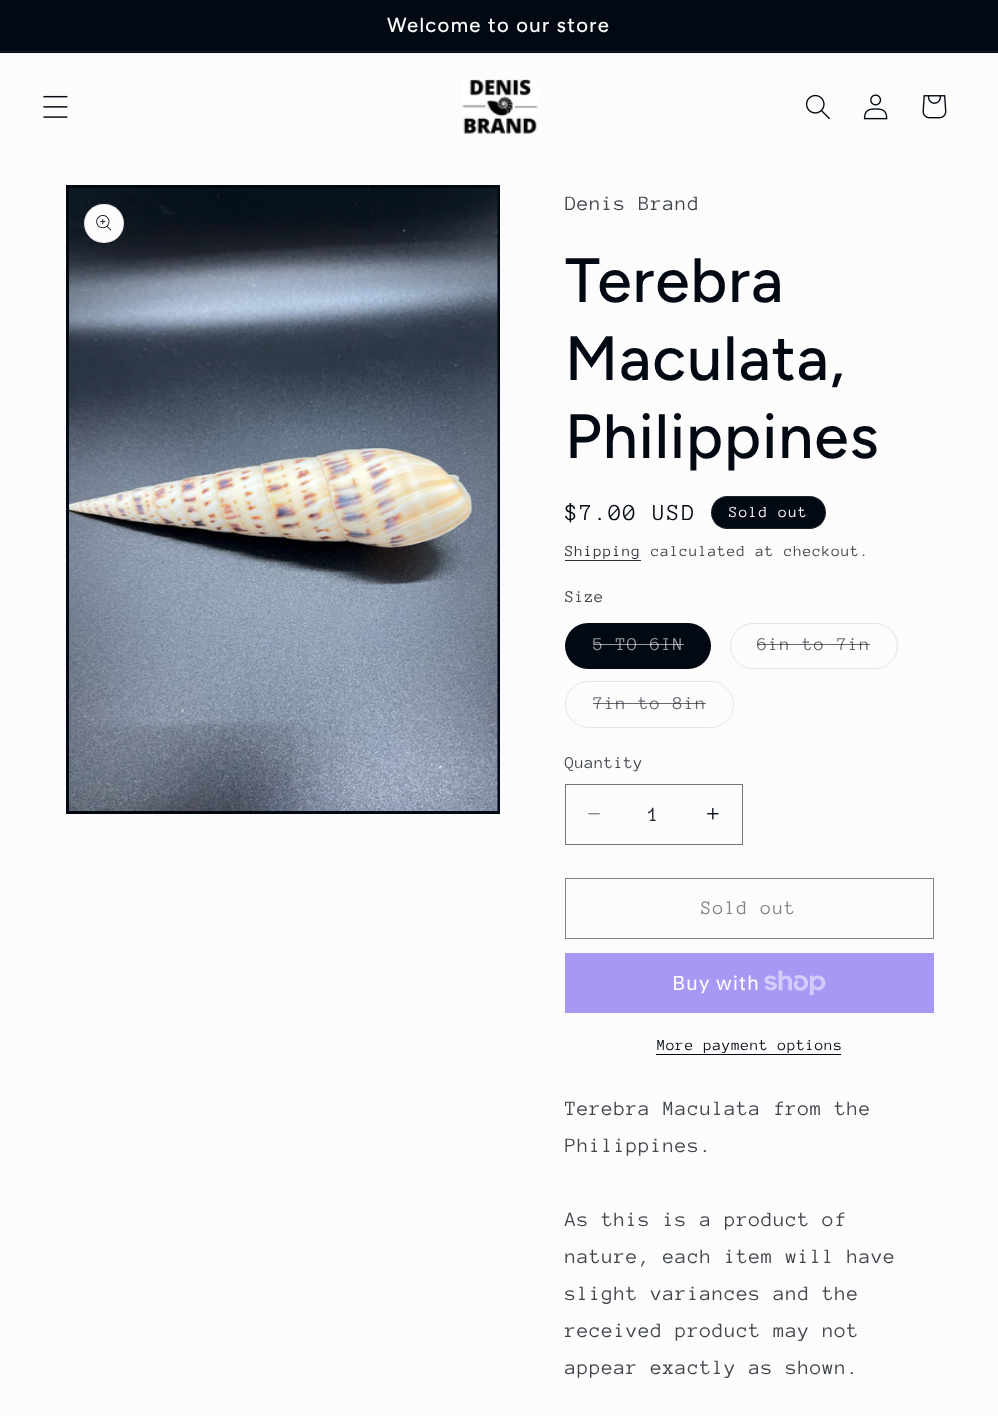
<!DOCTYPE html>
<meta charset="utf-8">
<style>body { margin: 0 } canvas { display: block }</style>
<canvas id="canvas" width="998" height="1416"></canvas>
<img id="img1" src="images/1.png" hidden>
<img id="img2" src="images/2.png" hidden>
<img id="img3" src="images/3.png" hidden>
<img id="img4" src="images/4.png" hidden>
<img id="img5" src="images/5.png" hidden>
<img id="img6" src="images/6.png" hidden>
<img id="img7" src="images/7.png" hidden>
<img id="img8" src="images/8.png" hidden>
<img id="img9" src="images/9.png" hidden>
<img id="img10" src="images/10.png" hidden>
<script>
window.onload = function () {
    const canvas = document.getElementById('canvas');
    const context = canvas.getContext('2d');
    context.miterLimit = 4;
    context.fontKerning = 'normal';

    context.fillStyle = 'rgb(252, 252, 252)';
    context.fillRect(0, 0, 998, 1416);
    context.fillStyle = 'rgb(2, 9, 18)';
    context.fillRect(0, 0, 998, 53);
    context.fillStyle = 'rgb(22, 28, 37)';
    context.fillRect(0, 51, 998, 1);
    context.drawImage(document.getElementById('img1'), 43, 95, 25, 23);
    context.drawImage(document.getElementById('img2'), 462, 79, 76, 55);
    context.drawImage(document.getElementById('img3'), 805, 94, 25, 26);
    context.drawImage(document.getElementById('img4'), 863, 94, 25, 26);
    context.drawImage(document.getElementById('img5'), 922, 95, 25, 24);
    context.strokeStyle = 'rgb(2, 9, 18)';
    context.lineWidth = 3;
    context.strokeRect(67.5, 186.5, 431, 626);
    context.drawImage(document.getElementById('img6'), 69, 188, 429, 623);
    context.fillStyle = 'rgb(252, 252, 252)';
    context.beginPath();
    context.roundRect(84, 204, 40, 39, 19.5);
    context.fill();
    context.beginPath();
    context.roundRect(84.5, 204.5, 39, 38, 19);
    context.strokeStyle = 'rgba(2, 9, 18, 0.1)';
    context.lineWidth = 1;
    context.stroke();
    context.drawImage(document.getElementById('img7'), 96, 215, 15, 16);
    context.fillStyle = 'rgb(2, 9, 18)';
    context.beginPath();
    context.roundRect(711, 496, 115, 33, 16.5);
    context.fill();
    context.beginPath();
    context.roundRect(711.5, 496.5, 114, 32, 16);
    context.strokeStyle = 'rgba(252, 252, 252, 0.1)';
    context.stroke();
    context.fillStyle = 'rgb(40, 45, 53)';
    context.fillRect(565, 560, 76, 1);
    context.fillStyle = 'rgb(2, 9, 18)';
    context.beginPath();
    context.roundRect(565, 623, 146, 46, 23);
    context.fill();
    context.beginPath();
    context.roundRect(565.5, 623.5, 145, 45, 22.5);
    context.strokeStyle = 'rgba(2, 9, 18, 0.1)';
    context.stroke();
    context.beginPath();
    context.roundRect(730.5, 623.5, 167, 45, 22.5);
    context.strokeStyle = 'rgb(227, 228, 229)';
    context.stroke();
    context.beginPath();
    context.roundRect(565.5, 681.5, 168, 46, 23);
    context.stroke();
    context.drawImage(document.getElementById('img8'), 588, 813, 12, 2);
    context.drawImage(document.getElementById('img9'), 706, 807, 13, 13);
    context.strokeStyle = 'rgb(114, 118, 123)';
    context.strokeRect(565.5, 784.5, 177, 60);
    context.strokeStyle = 'rgb(127, 131, 135)';
    context.strokeRect(565.5, 878.5, 368, 60);
    context.fillStyle = 'rgb(168, 152, 244)';
    context.fillRect(565, 953, 369, 60);
    context.drawImage(document.getElementById('img10'), 764, 970, 62, 25);
    context.fillStyle = 'rgb(2, 9, 18)';
    context.fillRect(656, 1054, 185, 1);
    context.letterSpacing = '1.3px';
    context.font = '500 20.25px Figtree';
    context.fillStyle = 'rgb(252, 252, 252)';
    context.fillText('Welcome to our store', 387, 32);
    context.letterSpacing = '0.8px';
    context.font = '21px Anonymous Pro';
    context.fillStyle = 'rgb(65, 70, 77)';
    context.fillText('Denis Brand', 565, 210);
    context.letterSpacing = '1px';
    context.font = '500 62.5px Figtree';
    context.fillStyle = 'rgb(2, 9, 18)';
    context.fillText('Terebra', 565, 302);
    context.fillText('Maculata,', 565, 380);
    context.fillText('Philippines', 565, 458);
    context.letterSpacing = '1.75px';
    context.font = '23.5px Anonymous Pro';
    context.fillText('$7.00 USD', 565, 520);
    context.letterSpacing = '1.3px';
    context.font = '15.75px Anonymous Pro';
    context.fillStyle = 'rgb(252, 252, 252)';
    context.fillText('Sold out', 729, 517);
    context.letterSpacing = '0.9px';
    context.fillStyle = 'rgb(40, 45, 53)';
    context.fillText('Shipping', 565, 556);
    context.fillStyle = 'rgb(65, 70, 77)';
    context.fillText('calculated at checkout.', 651, 556);
    context.letterSpacing = '0.5px';
    context.font = '17px Anonymous Pro';
    context.fillText('Size', 565, 602);
    context.letterSpacing = '1.3px';
    context.font = '18.5px Anonymous Pro';
    context.fillStyle = 'rgb(152, 155, 158)';
    context.fillText('5 TO 6IN', 593, 650);
    context.fillStyle = 'rgba(252, 252, 252, 0.6)';
    context.fillRect(593, 644, 91, 1);
    context.fillStyle = 'rgb(102, 106, 112)';
    context.fillText('6in to 7in', 757, 650);
    context.fillStyle = 'rgba(2, 9, 18, 0.6)';
    context.fillRect(758, 644, 112, 1);
    context.fillStyle = 'rgb(102, 106, 112)';
    context.fillText('7in to 8in', 593, 709);
    context.fillStyle = 'rgba(2, 9, 18, 0.6)';
    context.fillRect(593, 703, 113, 1);
    context.letterSpacing = '0.5px';
    context.font = '17px Anonymous Pro';
    context.fillStyle = 'rgb(65, 70, 77)';
    context.fillText('Quantity', 565, 768);
    context.letterSpacing = '0px';
    context.font = '21px Anonymous Pro';
    context.fillStyle = 'rgb(40, 45, 53)';
    context.fillText('1', 648, 821);
    context.letterSpacing = '1.3px';
    context.font = '19.5px Anonymous Pro';
    context.fillStyle = 'rgb(127, 131, 135)';
    context.fillText('Sold out', 701, 914);
    context.letterSpacing = '0.8px';
    context.font = '20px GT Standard';
    context.fillStyle = 'rgb(252, 252, 252)';
    context.fillText('Buy with', 672, 990);
    context.letterSpacing = '0.7px';
    context.font = '15.75px Anonymous Pro';
    context.fillStyle = 'rgb(2, 9, 18)';
    context.fillText('More payment options', 657, 1050);
    context.letterSpacing = '0.8px';
    context.font = '21px Anonymous Pro';
    context.fillStyle = 'rgb(65, 70, 77)';
    context.fillText('Terebra Maculata from the', 565, 1115);
    context.fillText('Philippines.', 565, 1152);
    context.fillText('As this is a product of', 565, 1226);
    context.fillText('nature, each item will have', 565, 1263);
    context.fillText('slight variances and the', 565, 1300);
    context.fillText('received product may not', 565, 1337);
    context.fillText('appear exactly as shown.', 565, 1374);
};
</script>
